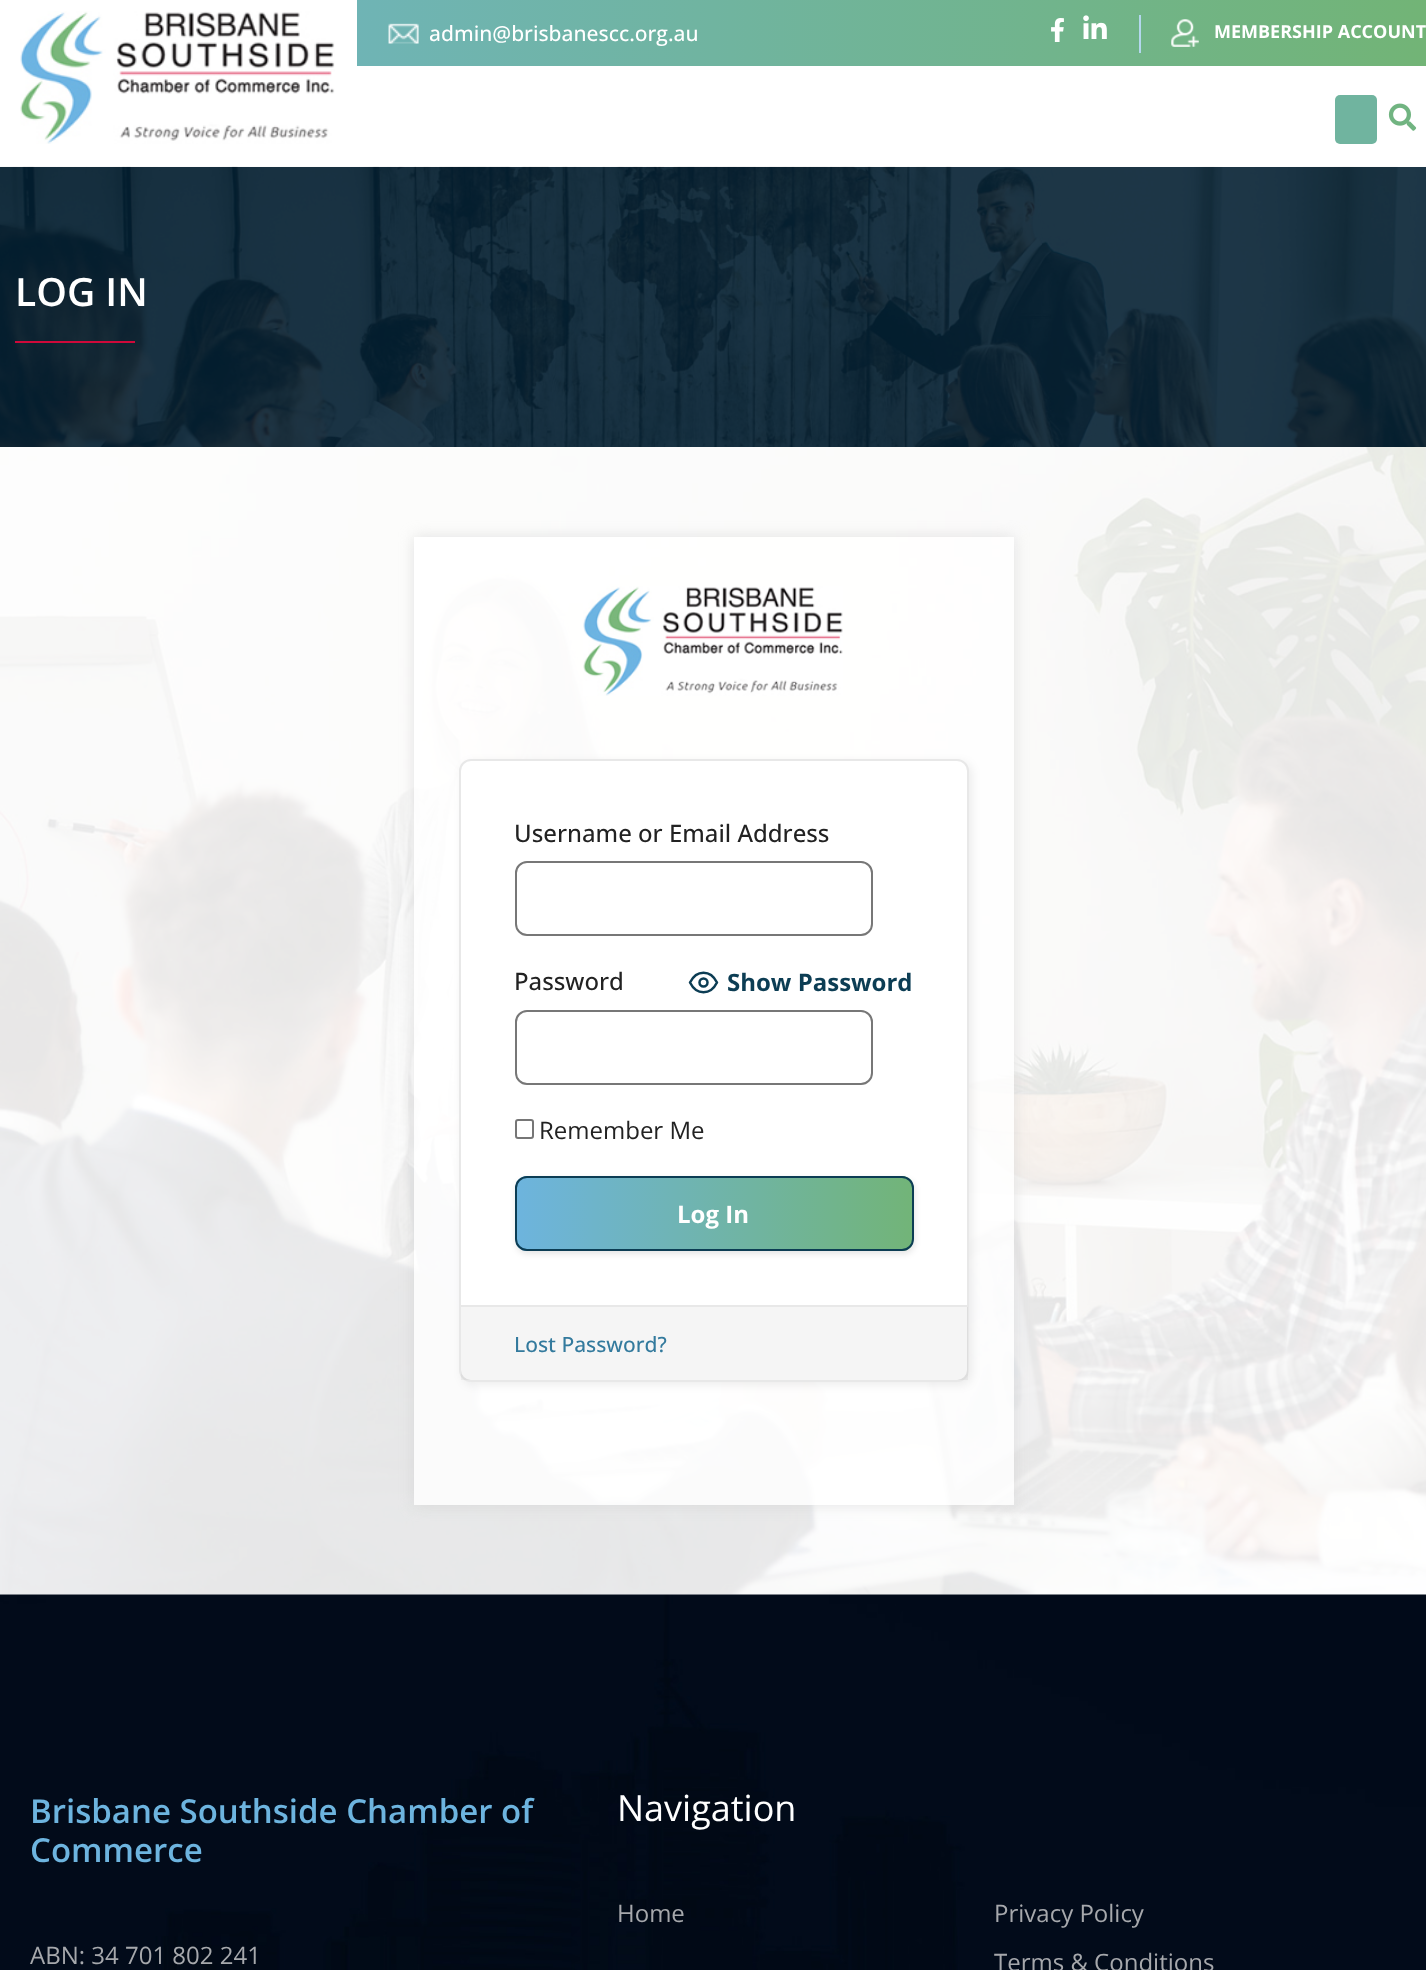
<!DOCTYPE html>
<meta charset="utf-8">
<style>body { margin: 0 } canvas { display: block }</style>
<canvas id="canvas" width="1426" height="1970"></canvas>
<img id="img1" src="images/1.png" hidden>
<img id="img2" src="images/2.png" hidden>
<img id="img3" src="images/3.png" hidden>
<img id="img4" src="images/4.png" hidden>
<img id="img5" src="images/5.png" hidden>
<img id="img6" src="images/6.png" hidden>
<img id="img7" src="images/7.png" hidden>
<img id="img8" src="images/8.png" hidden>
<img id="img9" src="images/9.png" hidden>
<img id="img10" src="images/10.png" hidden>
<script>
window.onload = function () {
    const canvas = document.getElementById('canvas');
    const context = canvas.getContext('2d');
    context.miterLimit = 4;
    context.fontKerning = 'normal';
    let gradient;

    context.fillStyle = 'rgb(255, 255, 255)';
    context.fillRect(0, 0, 1426, 1970);
    context.drawImage(document.getElementById('img1'), 20, 11, 315, 133);
    context.fillStyle = 'rgb(112, 180, 159)';
    context.beginPath();
    context.roundRect(1335, 95, 42, 49, 5);
    context.fill();
    context.drawImage(document.getElementById('img2'), 1388, 103, 29, 28);
    gradient = context.createLinearGradient(0, 33, 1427, 33);
    gradient.addColorStop(0, 'rgb(110, 180, 202)');
    gradient.addColorStop(1, 'rgb(114, 180, 118)');
    context.fillStyle = gradient;
    context.fillRect(357, 0, 1069, 66);
    context.drawImage(document.getElementById('img3'), 388, 23, 31, 21);
    context.drawImage(document.getElementById('img4'), 1051, 18, 13, 24);
    context.fillStyle = 'rgb(180, 215, 238)';
    context.fillRect(1139, 15, 2, 38);
    context.drawImage(document.getElementById('img5'), 1083, 15, 24, 24);
    context.drawImage(document.getElementById('img6'), 1171, 19, 28, 28);
    context.fillStyle = 'rgb(4, 32, 50)';
    context.fillRect(0, 167, 1426, 280);
    context.drawImage(document.getElementById('img7'), 0, 166, 1426, 281);
    context.fillStyle = 'rgb(207, 9, 58)';
    context.fillRect(15, 341, 120, 2);
    context.drawImage(document.getElementById('img8'), 0, 447, 1426, 1148);
    context.save();
    context.beginPath();
    context.moveTo(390, 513);
    context.lineTo(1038, 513);
    context.lineTo(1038, 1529);
    context.lineTo(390, 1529);
    context.closePath();
    context.moveTo(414, 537);
    context.lineTo(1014, 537);
    context.lineTo(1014, 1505);
    context.lineTo(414, 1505);
    context.closePath();
    context.clip('evenodd');
    context.fillStyle = 'rgba(202, 202, 202, 0.5)';
    context.filter = 'blur(7.5px)';
    context.beginPath();
    context.rect(414, 537, 600, 968);
    context.fill();
    context.filter = 'none';
    context.restore();
    context.fillStyle = 'rgba(255, 255, 255, 0.82)';
    context.fillRect(414, 537, 600, 968);
    context.drawImage(document.getElementById('img9'), 583, 586, 260, 110);
    context.fillStyle = 'rgba(0, 0, 0, 0.07)';
    context.filter = 'blur(5px)';
    context.beginPath();
    context.roundRect(462, 762, 510, 623, 12);
    context.fill();
    context.filter = 'none';
    context.fillStyle = 'rgb(255, 255, 255)';
    context.beginPath();
    context.roundRect(460, 760, 508, 621, 11);
    context.fill();
    context.strokeStyle = 'rgb(232, 232, 232)';
    context.lineWidth = 2;
    context.stroke();
    context.beginPath();
    context.roundRect(516, 862, 356, 73, 11);
    context.strokeStyle = 'rgb(119, 119, 119)';
    context.stroke();
    context.beginPath();
    context.moveTo(690, 982.5);
    context.bezierCurveTo(696.5, 969.5, 710.5, 969.5, 717, 982.5);
    context.bezierCurveTo(710.5, 995.5, 696.5, 995.5, 690, 982.5);
    context.closePath();
    context.strokeStyle = 'rgb(12, 61, 84)';
    context.lineWidth = 2.5;
    context.lineCap = 'round';
    context.lineJoin = 'round';
    context.stroke();
    context.beginPath();
    context.arc(703.5, 982.5, 4, 0, 2 * Math.PI);
    context.stroke();
    context.beginPath();
    context.roundRect(516, 1011, 356, 73, 11);
    context.strokeStyle = 'rgb(119, 119, 119)';
    context.lineWidth = 2;
    context.lineJoin = 'miter';
    context.stroke();
    context.beginPath();
    context.roundRect(516, 1120, 17, 18, 2);
    context.strokeStyle = 'rgb(118, 118, 118)';
    context.stroke();
    context.fillStyle = 'rgba(0, 0, 0, 0.1)';
    context.filter = 'blur(3px)';
    context.beginPath();
    context.roundRect(516, 1179, 399, 75, 12);
    context.fill();
    context.filter = 'none';
    context.save();
    context.beginPath();
    context.roundRect(515, 1176, 399, 75, 12);
    context.clip();
    gradient = context.createLinearGradient(516, 1214, 912, 1214);
    gradient.addColorStop(0, 'rgb(109, 180, 222)');
    gradient.addColorStop(1, 'rgb(114, 180, 120)');
    context.fillStyle = gradient;
    context.fillRect(516, 1176, 396, 75);
    context.restore();
    context.beginPath();
    context.roundRect(516, 1177, 397, 73, 11);
    context.strokeStyle = 'rgb(12, 61, 84)';
    context.stroke();
    context.fillStyle = 'rgba(0, 0, 0, 0.04)';
    context.fillRect(461, 1307, 507, 73);
    context.fillStyle = 'rgb(232, 232, 232)';
    context.fillRect(461, 1305, 507, 2);
    context.drawImage(document.getElementById('img10'), 0, 1594, 1426, 376);
    context.font = '500 21px Open Sans';
    context.fillStyle = 'rgb(255, 255, 255)';
    context.fillText('admin@brisbanescc.org.au', 429, 41);
    context.font = 'bold 18px Open Sans';
    context.fillText('MEMBERSHIP ACCOUNT', 1214, 38);
    context.font = '600 39px Open Sans';
    context.fillText('LOG IN', 15, 306);
    context.font = '500 24px Open Sans';
    context.fillStyle = 'rgb(34, 34, 34)';
    context.fillText('Username or Email Address', 514, 842);
    context.fillText('Password', 514, 990);
    context.font = 'bold 24px Open Sans';
    context.fillStyle = 'rgb(12, 61, 84)';
    context.fillText('Show Password', 727, 991);
    context.font = '24px Open Sans';
    context.fillStyle = 'rgb(34, 34, 34)';
    context.fillText('Remember Me', 539, 1139);
    context.font = 'bold 24px Open Sans';
    context.fillStyle = 'rgb(255, 255, 255)';
    context.fillText('Log In', 677, 1223);
    context.font = '500 21px Open Sans';
    context.fillStyle = 'rgb(51, 122, 157)';
    context.fillText('Lost Password?', 514, 1352);
    context.font = '600 33px Open Sans';
    context.fillStyle = 'rgb(109, 180, 223)';
    context.fillText('Brisbane Southside Chamber of', 30, 1823);
    context.fillText('Commerce', 30, 1862);
    context.font = '24px Open Sans';
    context.fillStyle = 'rgb(166, 168, 172)';
    context.fillText('ABN: 34 701 802 241', 30, 1964);
    context.font = '36px Open Sans';
    context.fillStyle = 'rgb(255, 255, 255)';
    context.fillText('Navigation', 617, 1821);
    context.font = '24px Open Sans';
    context.fillStyle = 'rgb(166, 168, 172)';
    context.fillText('Home', 617, 1922);
    context.fillText('Privacy Policy', 994, 1922);
    context.fillText('Terms & Conditions', 994, 1971);
};
</script>
